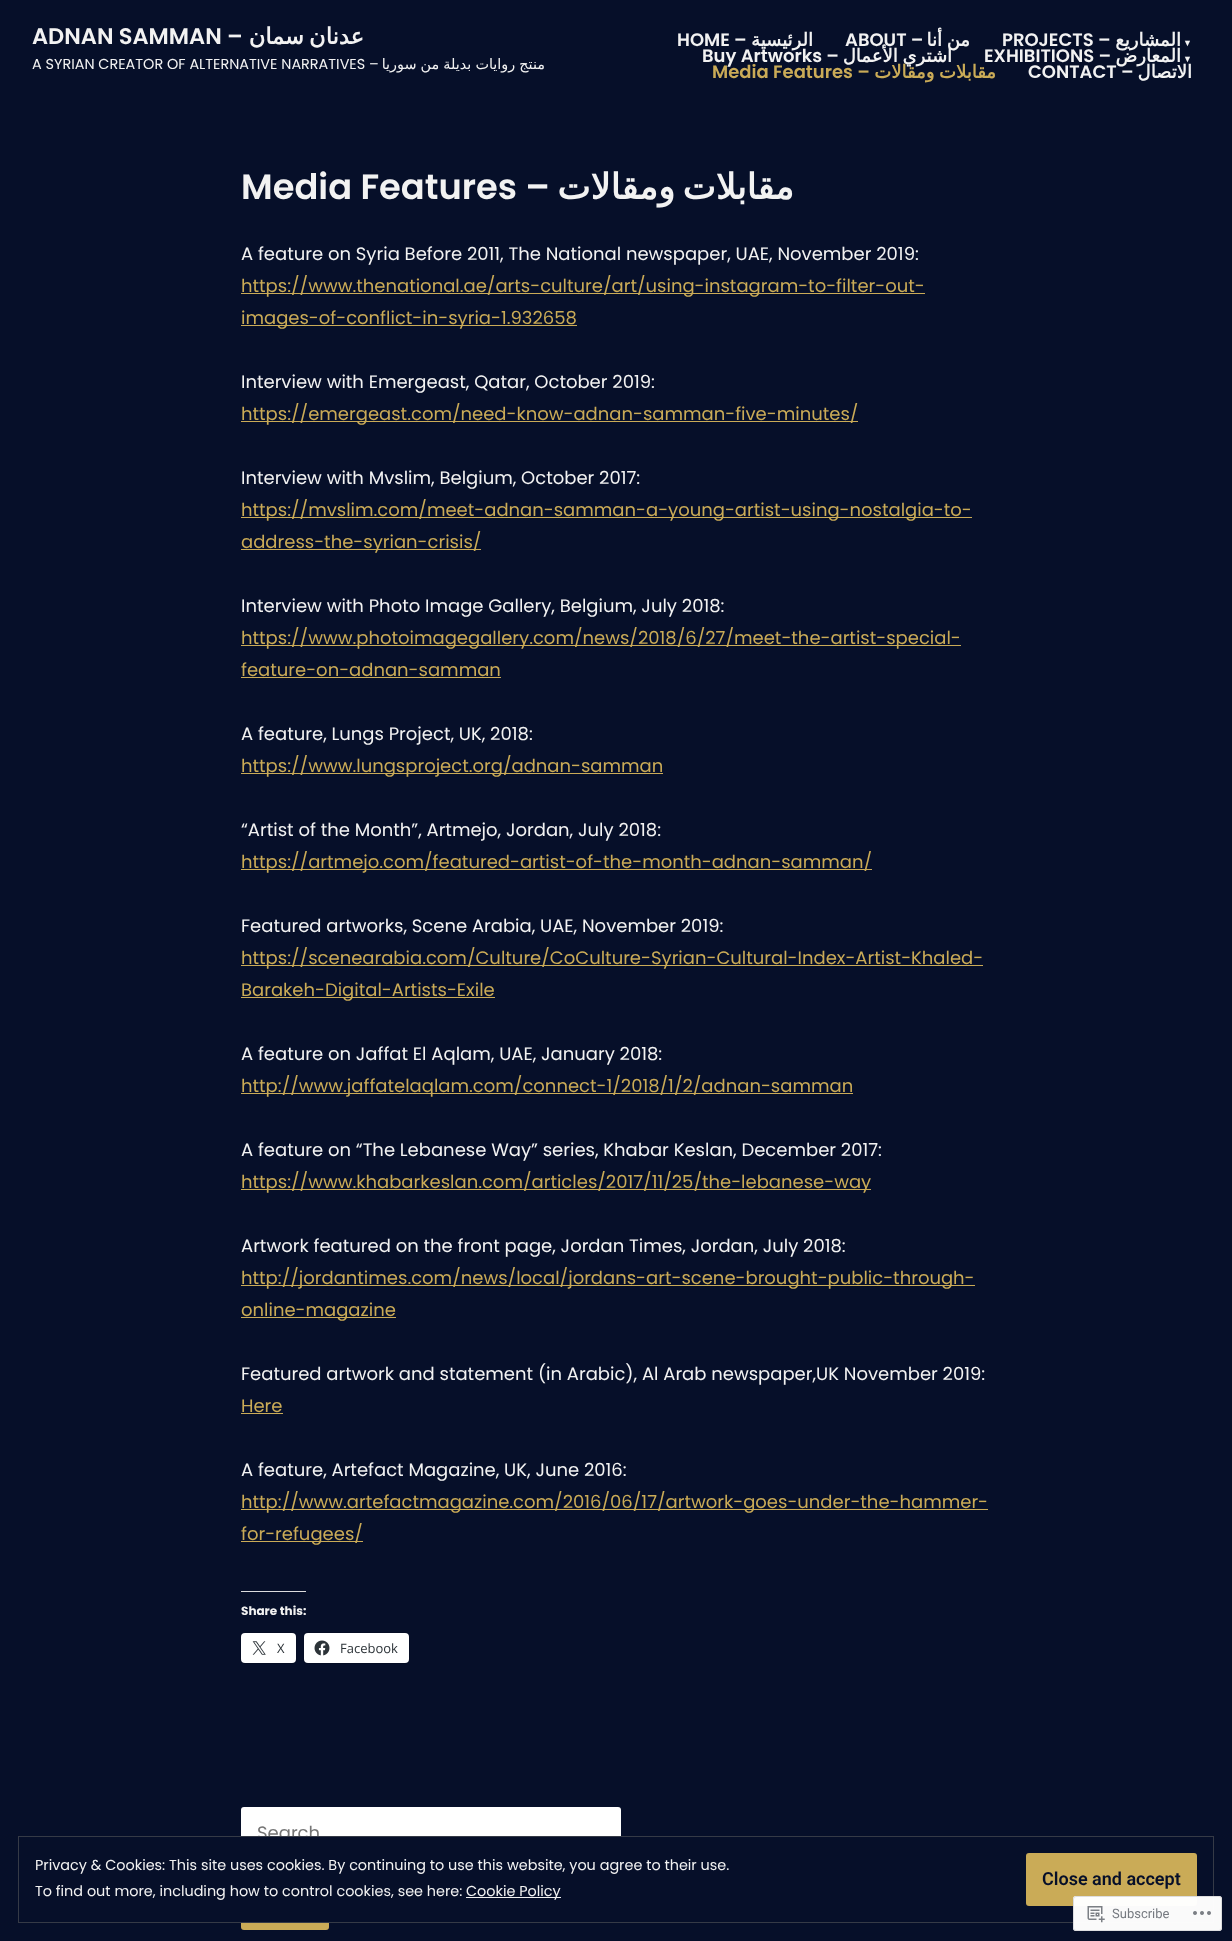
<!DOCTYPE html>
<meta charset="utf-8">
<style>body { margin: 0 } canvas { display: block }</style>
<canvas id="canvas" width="1232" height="1941"></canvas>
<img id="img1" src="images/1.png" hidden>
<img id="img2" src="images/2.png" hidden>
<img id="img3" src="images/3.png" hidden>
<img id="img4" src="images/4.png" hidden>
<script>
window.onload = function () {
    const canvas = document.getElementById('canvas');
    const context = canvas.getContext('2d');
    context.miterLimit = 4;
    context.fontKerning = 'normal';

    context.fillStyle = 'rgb(6, 15, 41)';
    context.fillRect(0, 0, 1232, 1941);
    context.fillStyle = 'rgb(202, 171, 87)';
    context.fillRect(241, 293, 684, 1);
    context.fillRect(241, 325, 336, 1);
    context.fillRect(241, 421, 617, 1);
    context.fillRect(241, 517, 731, 1);
    context.fillRect(241, 549, 240, 1);
    context.fillRect(241, 645, 720, 1);
    context.fillRect(241, 677, 260, 1);
    context.fillRect(241, 773, 422, 1);
    context.fillRect(241, 869, 631, 1);
    context.fillRect(241, 965, 742, 1);
    context.fillRect(241, 997, 254, 1);
    context.fillRect(241, 1093, 612, 1);
    context.fillRect(241, 1189, 630, 1);
    context.fillRect(241, 1285, 734, 1);
    context.fillRect(241, 1317, 155, 1);
    context.fillRect(241, 1413, 42, 1);
    context.fillRect(241, 1509, 747, 1);
    context.fillRect(241, 1541, 122, 1);
    context.fillStyle = 'rgb(220, 220, 222)';
    context.fillRect(241, 1591, 65, 1);
    context.beginPath();
    context.roundRect(240.5, 1632.5, 56, 31, 4.5);
    context.strokeStyle = 'rgb(5, 13, 36)';
    context.stroke();
    context.fillStyle = 'rgb(255, 255, 255)';
    context.beginPath();
    context.roundRect(241, 1633, 55, 30, 4);
    context.fill();
    context.drawImage(document.getElementById('img1'), 252, 1641, 14, 14);
    context.beginPath();
    context.roundRect(303.5, 1632.5, 106, 31, 4.5);
    context.stroke();
    context.beginPath();
    context.roundRect(304, 1633, 105, 30, 4);
    context.fill();
    context.drawImage(document.getElementById('img2'), 314, 1640, 16, 16);
    context.beginPath();
    context.roundRect(241, 1807, 380, 52, 3);
    context.fill();
    context.fillStyle = 'rgb(202, 171, 87)';
    context.beginPath();
    context.roundRect(241, 1877, 88, 53, 3);
    context.fill();
    context.font = '600 22.5px Poppins';
    context.fillStyle = 'rgb(242, 242, 242)';
    context.fillText('ADNAN SAMMAN –', 32, 44);
    context.wordSpacing = '-2px';
    context.direction = 'rtl';
    context.font = 'bold 22.5px DejaVu Sans';
    context.fillText('عدنان سمان', 364, 44);
    context.wordSpacing = '0px';
    context.direction = 'ltr';
    context.font = '14.4px Poppins';
    context.fillText('A SYRIAN CREATOR OF ALTERNATIVE NARRATIVES –', 32, 69);
    context.wordSpacing = '-0.5px';
    context.direction = 'rtl';
    context.font = '14.4px DejaVu Sans';
    context.fillText('منتج روايات بديلة من سوريا', 545, 69);
    context.wordSpacing = '0px';
    context.direction = 'ltr';
    context.font = '600 18px Poppins';
    context.fillText('HOME –', 677, 46);
    context.direction = 'rtl';
    context.font = 'bold 18px DejaVu Sans';
    context.fillText('الرئيسية', 813, 46);
    context.direction = 'ltr';
    context.font = '600 18px Poppins';
    context.fillText('ABOUT –', 845, 46);
    context.wordSpacing = '-1px';
    context.direction = 'rtl';
    context.font = 'bold 18px DejaVu Sans';
    context.fillText('من أنا', 970, 46);
    context.wordSpacing = '0px';
    context.direction = 'ltr';
    context.font = '600 18px Poppins';
    context.fillText('PROJECTS –', 1002, 46);
    context.direction = 'rtl';
    context.font = 'bold 18px DejaVu Sans';
    context.fillText('المشاريع', 1181, 46);
    context.direction = 'ltr';
    context.font = 'bold 9px Liberation Sans';
    context.fillText('▼', 1183, 46);
    context.font = '600 18px Poppins';
    context.fillText('Buy Artworks –', 702, 62);
    context.wordSpacing = '-1px';
    context.direction = 'rtl';
    context.font = 'bold 18px DejaVu Sans';
    context.fillText('اشتري الأعمال', 952, 62);
    context.wordSpacing = '0px';
    context.direction = 'ltr';
    context.font = '600 18px Poppins';
    context.fillText('EXHIBITIONS –', 984, 62);
    context.direction = 'rtl';
    context.font = 'bold 18px DejaVu Sans';
    context.fillText('المعارض', 1181, 62);
    context.direction = 'ltr';
    context.font = 'bold 9px Liberation Sans';
    context.fillText('▼', 1183, 62);
    context.font = '600 18px Poppins';
    context.fillStyle = 'rgb(202, 171, 87)';
    context.fillText('Media Features –', 712, 78);
    context.wordSpacing = '-1px';
    context.direction = 'rtl';
    context.font = 'bold 18px DejaVu Sans';
    context.fillText('مقابلات ومقالات', 996, 78);
    context.wordSpacing = '0px';
    context.direction = 'ltr';
    context.font = '600 18px Poppins';
    context.fillStyle = 'rgb(242, 242, 242)';
    context.fillText('CONTACT –', 1028, 78);
    context.direction = 'rtl';
    context.font = 'bold 18px DejaVu Sans';
    context.fillText('الاتصال', 1192, 78);
    context.direction = 'ltr';
    context.font = '600 35.25px Poppins';
    context.fillText('Media Features –', 241, 199);
    context.direction = 'rtl';
    context.font = 'bold 35.25px DejaVu Sans';
    context.fillText('ومقالات', 675, 199);
    context.fillText('مقابلات', 794, 199);
    context.direction = 'ltr';
    context.font = '18px Poppins';
    context.fillText('A feature on Syria Before 2011, The National newspaper, UAE, November 2019:', 241, 260);
    context.fillStyle = 'rgb(202, 171, 87)';
    context.fillText('https://www.thenational.ae/arts-culture/art/using-instagram-to-filter-out-', 241, 292);
    context.fillText('images-of-conflict-in-syria-1.932658', 241, 324);
    context.fillStyle = 'rgb(242, 242, 242)';
    context.fillText('Interview with Emergeast, Qatar, October 2019:', 241, 388);
    context.fillStyle = 'rgb(202, 171, 87)';
    context.fillText('https://emergeast.com/need-know-adnan-samman-five-minutes/', 241, 420);
    context.fillStyle = 'rgb(242, 242, 242)';
    context.fillText('Interview with Mvslim, Belgium, October 2017:', 241, 484);
    context.fillStyle = 'rgb(202, 171, 87)';
    context.fillText('https://mvslim.com/meet-adnan-samman-a-young-artist-using-nostalgia-to-', 241, 516);
    context.fillText('address-the-syrian-crisis/', 241, 548);
    context.fillStyle = 'rgb(242, 242, 242)';
    context.fillText('Interview with Photo Image Gallery, Belgium, July 2018:', 241, 612);
    context.fillStyle = 'rgb(202, 171, 87)';
    context.fillText('https://www.photoimagegallery.com/news/2018/6/27/meet-the-artist-special-', 241, 644);
    context.fillText('feature-on-adnan-samman', 241, 676);
    context.fillStyle = 'rgb(242, 242, 242)';
    context.fillText('A feature, Lungs Project, UK, 2018:', 241, 740);
    context.fillStyle = 'rgb(202, 171, 87)';
    context.fillText('https://www.lungsproject.org/adnan-samman', 241, 772);
    context.fillStyle = 'rgb(242, 242, 242)';
    context.fillText('“Artist of the Month”, Artmejo, Jordan, July 2018:', 241, 836);
    context.fillStyle = 'rgb(202, 171, 87)';
    context.fillText('https://artmejo.com/featured-artist-of-the-month-adnan-samman/', 241, 868);
    context.fillStyle = 'rgb(242, 242, 242)';
    context.fillText('Featured artworks, Scene Arabia, UAE, November 2019:', 241, 932);
    context.fillStyle = 'rgb(202, 171, 87)';
    context.fillText('https://scenearabia.com/Culture/CoCulture-Syrian-Cultural-Index-Artist-Khaled-', 241, 964);
    context.fillText('Barakeh-Digital-Artists-Exile', 241, 996);
    context.fillStyle = 'rgb(242, 242, 242)';
    context.fillText('A feature on Jaffat El Aqlam, UAE, January 2018:', 241, 1060);
    context.fillStyle = 'rgb(202, 171, 87)';
    context.fillText('http://www.jaffatelaqlam.com/connect-1/2018/1/2/adnan-samman', 241, 1092);
    context.fillStyle = 'rgb(242, 242, 242)';
    context.fillText('A feature on “The Lebanese Way” series, Khabar Keslan, December 2017:', 241, 1156);
    context.fillStyle = 'rgb(202, 171, 87)';
    context.fillText('https://www.khabarkeslan.com/articles/2017/11/25/the-lebanese-way', 241, 1188);
    context.fillStyle = 'rgb(242, 242, 242)';
    context.fillText('Artwork featured on the front page, Jordan Times, Jordan, July 2018:', 241, 1252);
    context.fillStyle = 'rgb(202, 171, 87)';
    context.fillText('http://jordantimes.com/news/local/jordans-art-scene-brought-public-through-', 241, 1284);
    context.fillText('online-magazine', 241, 1316);
    context.fillStyle = 'rgb(242, 242, 242)';
    context.fillText('Featured artwork and statement (in Arabic), Al Arab newspaper,UK November 2019:', 241, 1380);
    context.fillStyle = 'rgb(202, 171, 87)';
    context.fillText('Here', 241, 1412);
    context.fillStyle = 'rgb(242, 242, 242)';
    context.fillText('A feature, Artefact Magazine, UK, June 2016:', 241, 1476);
    context.fillStyle = 'rgb(202, 171, 87)';
    context.fillText('http://www.artefactmagazine.com/2016/06/17/artwork-goes-under-the-hammer-', 241, 1508);
    context.fillText('for-refugees/', 241, 1540);
    context.font = 'bold 12px Poppins';
    context.fillStyle = 'rgb(242, 242, 242)';
    context.fillText('Share this:', 241, 1615);
    context.font = '13px Open Sans';
    context.fillStyle = 'rgb(44, 51, 56)';
    context.fillText('X', 277, 1653);
    context.fillText('Facebook', 340, 1653);
    context.font = '18px Poppins';
    context.fillStyle = 'rgb(117, 117, 117)';
    context.fillText('Search', 257, 1839);
    context.fillStyle = 'rgb(6, 15, 41)';
    context.fillRect(241, 1837, 380, 85);
    context.strokeStyle = 'rgb(53, 58, 70)';
    context.strokeRect(18.5, 1836.5, 1195, 86);
    context.font = '14.4px Poppins';
    context.fillStyle = 'rgb(242, 242, 242)';
    context.fillText('Privacy & Cookies: This site uses cookies. By continuing to use this website, you agree to their use.', 35, 1870);
    context.fillStyle = 'rgb(202, 171, 87)';
    context.beginPath();
    context.roundRect(1026, 1853, 171, 53, 3);
    context.fill();
    context.font = '600 18px Roboto';
    context.fillStyle = 'rgb(6, 15, 41)';
    context.fillText('Close and accept', 1042, 1885);
    context.font = '14.4px Poppins';
    context.fillStyle = 'rgb(242, 242, 242)';
    context.fillText('To find out more, including how to control cookies, see here:', 35, 1896);
    context.fillRect(466, 1897, 95, 1);
    context.fillText('Cookie Policy', 466, 1896);
    context.fillStyle = 'rgba(255, 255, 255, 0.98)';
    context.beginPath();
    context.roundRect(1073, 1896, 149, 35, 3);
    context.fill();
    context.beginPath();
    context.roundRect(1073.5, 1896.5, 148, 34, 2.5);
    context.strokeStyle = 'rgba(220, 220, 222, 0.98)';
    context.stroke();
    context.drawImage(document.getElementById('img3'), 1087, 1906, 18, 17);
    context.font = '13px Roboto';
    context.fillStyle = 'rgb(118, 122, 128)';
    context.fillText('Subscribe', 1112, 1918);
    context.drawImage(document.getElementById('img4'), 1193, 1911, 18, 4);
};
</script>
